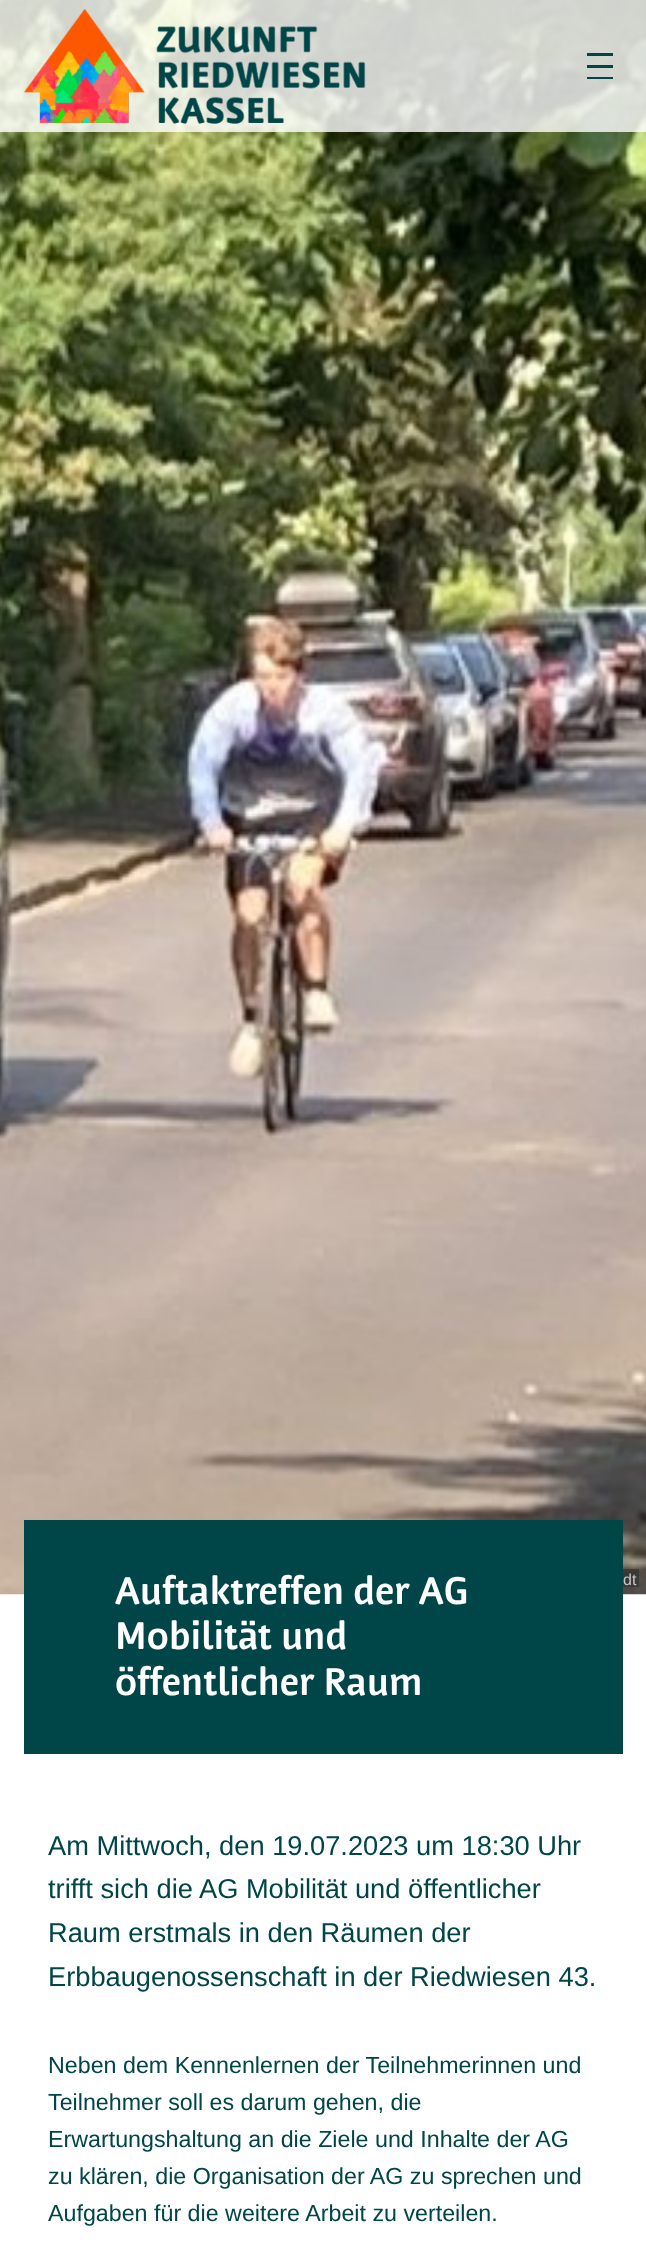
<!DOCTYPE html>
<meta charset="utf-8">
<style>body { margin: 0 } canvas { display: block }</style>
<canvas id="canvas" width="646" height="2251"></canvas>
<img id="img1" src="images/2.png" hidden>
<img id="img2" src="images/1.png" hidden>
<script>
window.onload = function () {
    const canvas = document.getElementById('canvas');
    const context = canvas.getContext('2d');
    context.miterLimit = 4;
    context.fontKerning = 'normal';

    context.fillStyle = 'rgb(255, 255, 255)';
    context.fillRect(0, 0, 646, 2251);
    context.drawImage(document.getElementById('img1'), 0, 0, 646, 1595);
    context.fillStyle = 'rgba(255, 255, 255, 0.8)';
    context.fillRect(0, 0, 646, 132);
    context.drawImage(document.getElementById('img2'), 24, 9, 342, 115);
    context.fillStyle = 'rgb(0, 69, 71)';
    context.fillRect(587, 53, 26, 3);
    context.fillRect(587, 65, 26, 3);
    context.fillRect(587, 77, 26, 2);
    context.fillRect(24, 1520, 599, 234);
    context.fillStyle = 'rgba(51, 51, 51, 0.7)';
    context.fillRect(623, 1569, 16, 18);
    context.font = 'bold 38.25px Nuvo';
    context.fillStyle = 'rgb(255, 255, 255)';
    context.fillText('Auftaktreffen der AG', 115, 1604);
    context.fillText('Mobilität und', 115, 1649);
    context.fillText('öffentlicher Raum', 115, 1695);
    context.font = '16px Liberation Sans';
    context.fillStyle = 'rgb(199, 198, 198)';
    context.fillText('dt', 623, 1585);
    context.font = '27.25px Liberation Sans';
    context.fillStyle = 'rgb(0, 69, 71)';
    context.fillText('Am Mittwoch, den 19.07.2023 um 18:30 Uhr', 48, 1855);
    context.fillText('trifft sich die AG Mobilität und öffentlicher', 48, 1898);
    context.fillText('Raum erstmals in den Räumen der', 48, 1942);
    context.fillText('Erbbaugenossenschaft in der Riedwiesen 43.', 48, 1986);
    context.font = '23.25px Liberation Sans';
    context.fillText('Neben dem Kennenlernen der Teilnehmerinnen und', 48, 2073);
    context.fillText('Teilnehmer soll es darum gehen, die', 48, 2110);
    context.fillText('Erwartungshaltung an die Ziele und Inhalte der AG', 48, 2147);
    context.fillText('zu klären, die Organisation der AG zu sprechen und', 48, 2184);
    context.fillText('Aufgaben für die weitere Arbeit zu verteilen.', 48, 2221);
};
</script>
